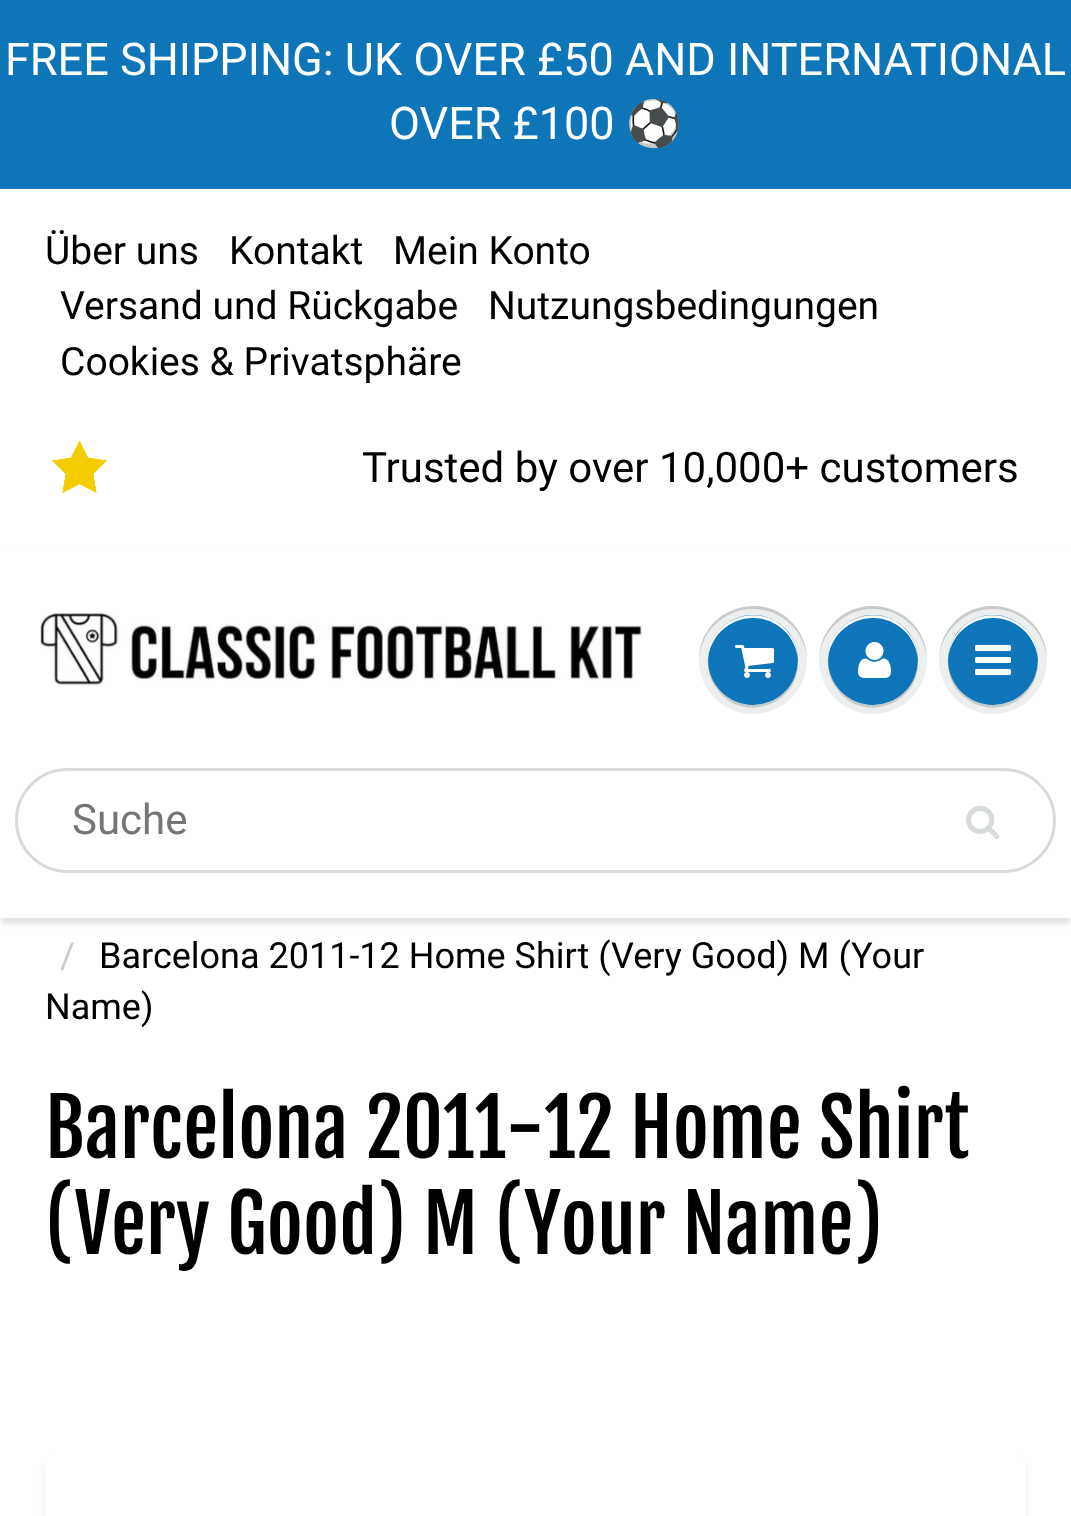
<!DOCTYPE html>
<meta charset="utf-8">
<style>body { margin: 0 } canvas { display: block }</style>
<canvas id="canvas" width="1071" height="1516"></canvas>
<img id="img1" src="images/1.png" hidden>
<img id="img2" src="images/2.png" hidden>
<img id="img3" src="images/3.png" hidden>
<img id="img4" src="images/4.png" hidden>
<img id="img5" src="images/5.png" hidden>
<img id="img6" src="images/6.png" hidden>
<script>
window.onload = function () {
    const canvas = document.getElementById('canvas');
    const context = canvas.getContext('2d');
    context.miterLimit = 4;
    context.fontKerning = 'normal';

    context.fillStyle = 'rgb(255, 255, 255)';
    context.fillRect(0, 0, 1071, 1516);
    context.fillStyle = 'rgb(14, 118, 184)';
    context.fillRect(0, 0, 1071, 189);
    context.drawImage(document.getElementById('img1'), 52, 441, 55, 52);
    context.fillStyle = 'rgba(11, 25, 28, 0.12)';
    context.filter = 'blur(3px)';
    context.beginPath();
    context.rect(0, 555, 1071, 369);
    context.fill();
    context.filter = 'none';
    context.fillStyle = 'rgb(255, 255, 255)';
    context.fillRect(0, 551, 1071, 367);
    context.drawImage(document.getElementById('img2'), 40, 610, 602, 76);
    context.fillStyle = 'rgb(237, 239, 239)';
    context.beginPath();
    context.arc(753, 660, 54, 0, 2 * Math.PI);
    context.fill();
    context.fillStyle = 'rgb(201, 203, 203)';
    context.beginPath();
    context.moveTo(708, 662);
    context.bezierCurveTo(708, 671, 710, 680, 716, 688);
    context.bezierCurveTo(741, 725, 799, 706, 798, 662);
    context.bezierCurveTo(797, 686, 777, 705, 753, 705);
    context.bezierCurveTo(729, 705, 709, 686, 708, 662);
    context.closePath();
    context.fill();
    context.beginPath();
    context.moveTo(753, 609);
    context.bezierCurveTo(782, 609, 806, 632, 807, 661);
    context.bezierCurveTo(807, 650, 804, 639, 798, 630);
    context.bezierCurveTo(768, 585, 698, 608, 699, 661);
    context.bezierCurveTo(700, 632, 724, 609, 753, 609);
    context.closePath();
    context.fill();
    context.fillStyle = 'rgb(14, 118, 184)';
    context.beginPath();
    context.arc(753, 660, 45, 0, 2 * Math.PI);
    context.fill();
    context.fillStyle = 'rgb(255, 255, 255)';
    context.beginPath();
    context.moveTo(753, 618);
    context.bezierCurveTo(777, 618, 797, 637, 798, 661);
    context.bezierCurveTo(798, 652, 796, 643, 790, 635);
    context.bezierCurveTo(765, 598, 707, 617, 708, 661);
    context.bezierCurveTo(709, 637, 729, 618, 753, 618);
    context.closePath();
    context.fill();
    context.drawImage(document.getElementById('img3'), 735, 645, 39, 33);
    context.fillStyle = 'rgb(237, 239, 239)';
    context.beginPath();
    context.arc(873, 660, 54, 0, 2 * Math.PI);
    context.fill();
    context.fillStyle = 'rgb(201, 203, 203)';
    context.beginPath();
    context.moveTo(828, 662);
    context.bezierCurveTo(828, 671, 830, 680, 836, 688);
    context.bezierCurveTo(861, 725, 919, 706, 918, 662);
    context.bezierCurveTo(917, 686, 897, 705, 873, 705);
    context.bezierCurveTo(849, 705, 829, 686, 828, 662);
    context.closePath();
    context.fill();
    context.beginPath();
    context.moveTo(873, 609);
    context.bezierCurveTo(902, 609, 926, 632, 927, 661);
    context.bezierCurveTo(928, 608, 858, 585, 828, 630);
    context.bezierCurveTo(822, 639, 819, 650, 819, 661);
    context.bezierCurveTo(820, 632, 844, 609, 873, 609);
    context.closePath();
    context.fill();
    context.fillStyle = 'rgb(14, 118, 184)';
    context.beginPath();
    context.arc(873, 660, 45, 0, 2 * Math.PI);
    context.fill();
    context.fillStyle = 'rgb(255, 255, 255)';
    context.beginPath();
    context.moveTo(873, 618);
    context.bezierCurveTo(897, 618, 917, 637, 918, 661);
    context.bezierCurveTo(918, 652, 916, 643, 910, 635);
    context.bezierCurveTo(885, 598, 827, 617, 828, 661);
    context.bezierCurveTo(829, 637, 849, 618, 873, 618);
    context.closePath();
    context.fill();
    context.drawImage(document.getElementById('img4'), 858, 642, 33, 36);
    context.fillStyle = 'rgb(237, 239, 239)';
    context.beginPath();
    context.arc(993, 660, 54, 0, 2 * Math.PI);
    context.fill();
    context.fillStyle = 'rgb(201, 203, 203)';
    context.beginPath();
    context.moveTo(948, 662);
    context.bezierCurveTo(947, 706, 1005, 725, 1030, 688);
    context.bezierCurveTo(1036, 680, 1038, 671, 1038, 662);
    context.bezierCurveTo(1037, 686, 1017, 705, 993, 705);
    context.bezierCurveTo(969, 705, 949, 686, 948, 662);
    context.closePath();
    context.fill();
    context.beginPath();
    context.moveTo(993, 609);
    context.bezierCurveTo(1022, 609, 1046, 632, 1047, 661);
    context.bezierCurveTo(1048, 608, 978, 585, 948, 630);
    context.bezierCurveTo(942, 639, 939, 650, 939, 661);
    context.bezierCurveTo(940, 632, 964, 609, 993, 609);
    context.closePath();
    context.fill();
    context.fillStyle = 'rgb(14, 118, 184)';
    context.beginPath();
    context.arc(993, 660, 45, 0, 2 * Math.PI);
    context.fill();
    context.fillStyle = 'rgb(255, 255, 255)';
    context.beginPath();
    context.moveTo(993, 618);
    context.bezierCurveTo(1017, 618, 1037, 637, 1038, 661);
    context.bezierCurveTo(1039, 617, 981, 598, 956, 635);
    context.bezierCurveTo(950, 643, 948, 652, 948, 661);
    context.bezierCurveTo(949, 637, 969, 618, 993, 618);
    context.closePath();
    context.fill();
    context.drawImage(document.getElementById('img5'), 975, 645, 36, 30);
    context.beginPath();
    context.roundRect(16.5, 769.5, 1038, 102, 51);
    context.strokeStyle = 'rgb(215, 219, 219)';
    context.lineWidth = 3;
    context.stroke();
    context.drawImage(document.getElementById('img6'), 966, 805, 34, 34);
    context.save();
    context.beginPath();
    context.moveTo(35, 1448);
    context.lineTo(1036, 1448);
    context.lineTo(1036, 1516);
    context.lineTo(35, 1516);
    context.closePath();
    context.moveTo(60, 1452);
    context.lineTo(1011, 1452);
    context.bezierCurveTo(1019.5, 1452, 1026, 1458.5, 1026, 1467);
    context.lineTo(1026, 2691);
    context.bezierCurveTo(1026, 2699.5, 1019.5, 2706, 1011, 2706);
    context.lineTo(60, 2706);
    context.bezierCurveTo(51.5, 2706, 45, 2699.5, 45, 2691);
    context.lineTo(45, 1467);
    context.bezierCurveTo(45, 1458.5, 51.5, 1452, 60, 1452);
    context.closePath();
    context.clip('evenodd');
    context.fillStyle = 'rgba(11, 25, 28, 0.1)';
    context.filter = 'blur(3px)';
    context.beginPath();
    context.roundRect(45, 1458, 981, 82, 15);
    context.fill();
    context.filter = 'none';
    context.restore();
    context.font = '45px Roboto';
    context.fillText('FREE SHIPPING: UK OVER £50 AND INTERNATIONAL', 5, 75);
    context.fillText('OVER £100', 389, 139);
    context.font = '45px Noto Color Emoji';
    context.fillText('⚽', 626, 139);
    context.font = '39px Roboto';
    context.fillStyle = 'rgb(0, 0, 0)';
    context.fillText('Über uns', 45, 264);
    context.fillText('Kontakt', 229, 264);
    context.fillText('Mein Konto', 393, 264);
    context.fillText('Versand und Rückgabe', 60, 319);
    context.fillText('Nutzungsbedingungen', 488, 319);
    context.fillText('Cookies & Privatsphäre', 60, 375);
    context.font = '42px Roboto';
    context.fillText('Trusted by over 10,000+ customers', 362, 482);
    context.fillStyle = 'rgb(117, 117, 117)';
    context.fillText('Suche', 72, 834);
    context.font = '36px Roboto';
    context.fillStyle = 'rgb(204, 204, 204)';
    context.fillText('/', 60, 968);
    context.fillStyle = 'rgb(0, 0, 0)';
    context.fillText('Barcelona 2011-12 Home Shirt (Very Good) M (Your', 99, 968);
    context.fillText('Name)', 45, 1019);
    context.font = '78px Fjalla One';
    context.fillText('Barcelona 2011-12 Home Shirt', 45, 1158);
    context.fillText('(Very Good) M (Your Name)', 45, 1254);
};
</script>
